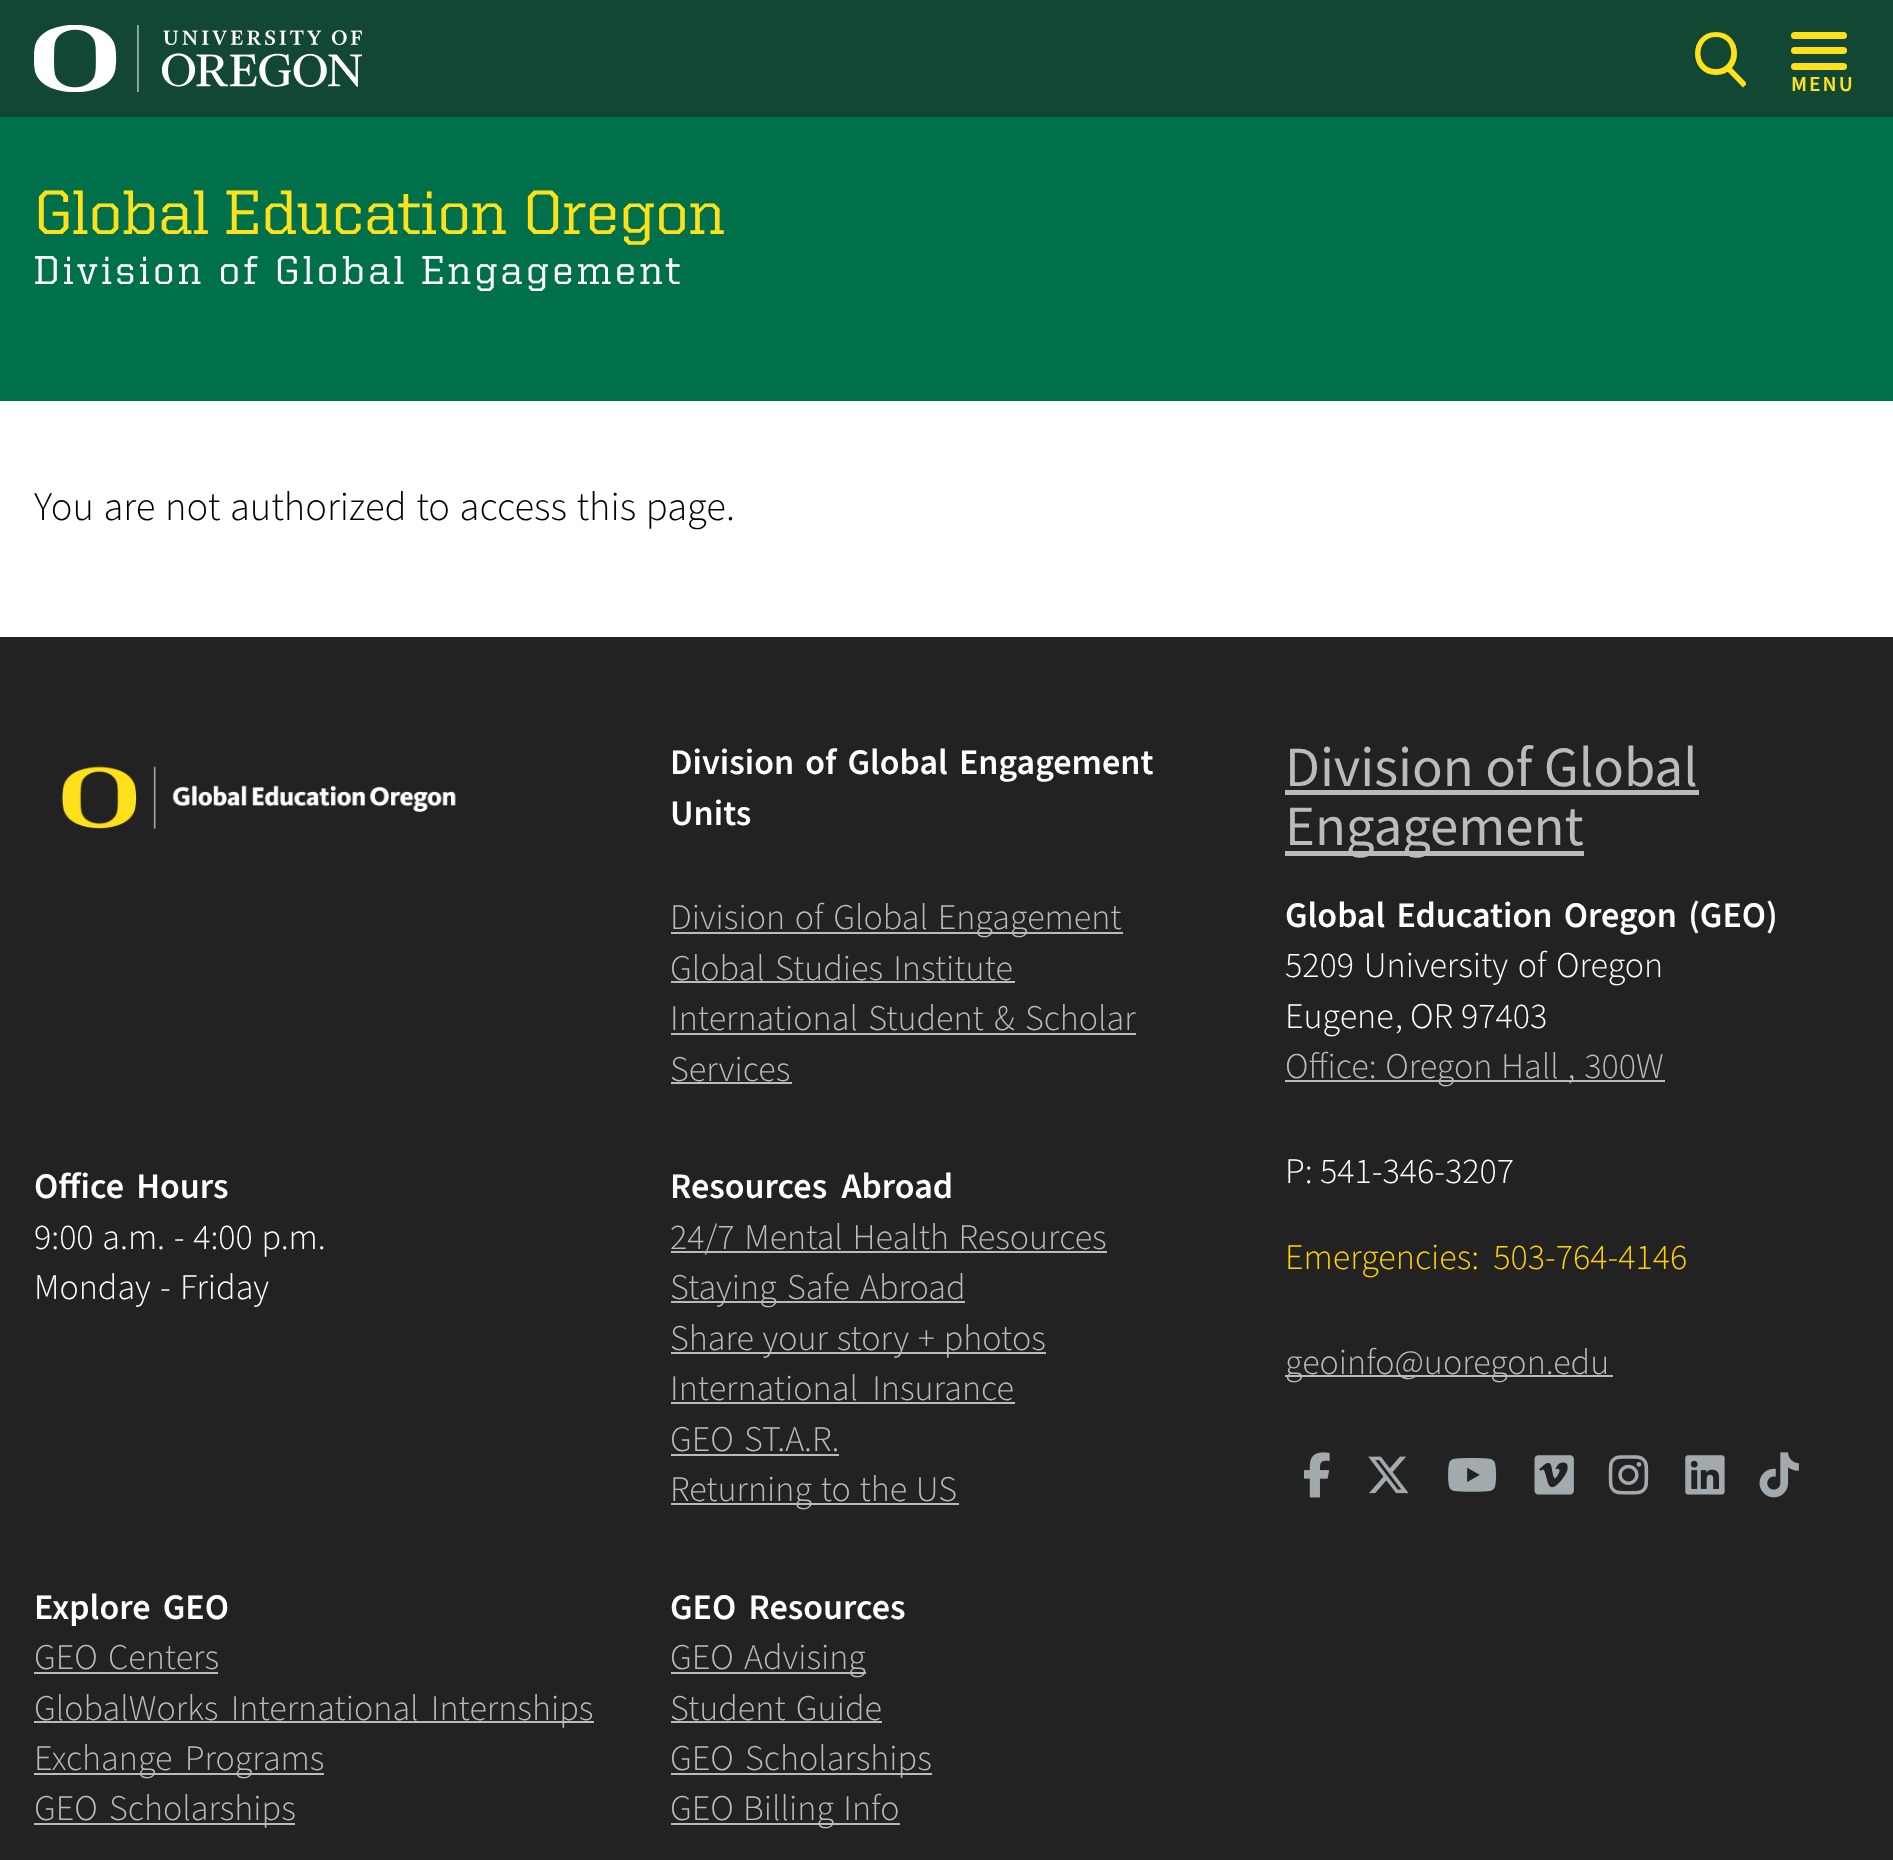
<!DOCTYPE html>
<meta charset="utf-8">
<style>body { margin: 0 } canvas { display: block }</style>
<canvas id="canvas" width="1893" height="1860"></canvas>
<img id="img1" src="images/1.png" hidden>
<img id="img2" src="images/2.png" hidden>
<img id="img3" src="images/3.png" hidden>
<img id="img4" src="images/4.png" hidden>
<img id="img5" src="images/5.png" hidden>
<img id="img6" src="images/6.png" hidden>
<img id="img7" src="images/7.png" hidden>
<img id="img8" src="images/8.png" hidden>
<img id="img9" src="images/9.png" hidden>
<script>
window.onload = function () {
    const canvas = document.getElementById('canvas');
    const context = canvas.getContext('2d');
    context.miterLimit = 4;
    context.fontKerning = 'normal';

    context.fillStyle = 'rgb(18, 71, 52)';
    context.fillRect(0, 0, 1893, 1860);
    context.drawImage(document.getElementById('img1'), 34, 25, 328, 67);
    context.fillStyle = 'rgb(254, 225, 26)';
    context.beginPath();
    context.moveTo(1716, 75);
    context.bezierCurveTo(1688, 75, 1688, 32, 1716, 32);
    context.bezierCurveTo(1744, 32, 1744, 75, 1716, 75);
    context.closePath();
    context.moveTo(1716, 37);
    context.bezierCurveTo(1696, 37, 1695, 68, 1715, 69);
    context.bezierCurveTo(1736, 70, 1737, 37, 1716, 37);
    context.closePath();
    context.fill();
    context.save();
    context.beginPath();
    context.rect(1694, 32, 52, 56);
    context.clip();
    context.beginPath();
    context.moveTo(1725, 69);
    context.lineTo(1729, 65);
    context.lineTo(1747, 83.5);
    context.lineTo(1743, 87.5);
    context.closePath();
    context.fill();
    context.restore();
    context.beginPath();
    context.roundRect(1791, 32, 56, 7, 3.5);
    context.fill();
    context.beginPath();
    context.roundRect(1791, 47, 56, 7, 3.5);
    context.fill();
    context.beginPath();
    context.roundRect(1791, 63, 56, 7, 3.5);
    context.fill();
    context.fillStyle = 'rgb(255, 255, 255)';
    context.fillRect(0, 401, 1893, 236);
    context.fillStyle = 'rgb(0, 112, 74)';
    context.fillRect(0, 117, 1893, 284);
    context.fillStyle = 'rgb(34, 34, 34)';
    context.fillRect(0, 637, 1893, 1223);
    context.drawImage(document.getElementById('img2'), 61, 766, 395, 63);
    context.fillStyle = 'rgb(187, 187, 187)';
    context.fillRect(671, 932, 452, 2);
    context.fillRect(671, 981, 344, 2);
    context.fillRect(671, 1033, 465, 2);
    context.fillRect(671, 1082, 121, 2);
    context.fillRect(671, 1251, 436, 2);
    context.fillRect(671, 1301, 294, 2);
    context.fillRect(671, 1352, 375, 2);
    context.fillRect(671, 1402, 344, 2);
    context.fillRect(671, 1454, 168, 2);
    context.fillRect(671, 1503, 288, 2);
    context.fillRect(34, 1672, 184, 2);
    context.fillRect(34, 1721, 560, 2);
    context.fillRect(34, 1773, 290, 2);
    context.fillRect(34, 1823, 261, 2);
    context.fillRect(671, 1672, 195, 2);
    context.fillRect(671, 1721, 211, 2);
    context.fillRect(671, 1773, 261, 2);
    context.fillRect(671, 1823, 229, 2);
    context.fillRect(1285, 790, 414, 5);
    context.fillRect(1285, 851, 299, 5);
    context.fillRect(1285, 1080, 380, 2);
    context.fillRect(1285, 1375, 328, 2);
    context.drawImage(document.getElementById('img3'), 1304, 1452, 26, 46);
    context.drawImage(document.getElementById('img4'), 1368, 1456, 41, 38);
    context.drawImage(document.getElementById('img5'), 1448, 1458, 49, 34);
    context.drawImage(document.getElementById('img6'), 1534, 1455, 40, 40);
    context.drawImage(document.getElementById('img7'), 1608, 1455, 41, 40);
    context.drawImage(document.getElementById('img8'), 1685, 1455, 40, 40);
    context.drawImage(document.getElementById('img9'), 1759, 1452, 40, 46);
    context.letterSpacing = '2px';
    context.font = '600 21.5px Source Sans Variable';
    context.fillStyle = 'rgb(254, 225, 26)';
    context.fillText('MENU', 1791, 91);
    context.letterSpacing = '0px';
    context.font = '500 63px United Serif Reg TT';
    context.fillText('Global Education Oregon', 34, 234);
    context.letterSpacing = '3.4px';
    context.font = '500 40.5px United Serif Reg TT';
    context.fillStyle = 'rgb(255, 255, 255)';
    context.fillText('Division of Global Engagement', 34, 284);
    context.letterSpacing = '0px';
    context.wordSpacing = '1.5px';
    context.font = '300 40.5px Source Sans Variable';
    context.fillStyle = 'rgb(0, 0, 0)';
    context.fillText('You are not authorized to access this page.', 34, 520);
    context.wordSpacing = '4px';
    context.font = '600 36px Source Sans Variable';
    context.fillStyle = 'rgb(255, 255, 255)';
    context.fillText('Division of Global Engagement', 670, 774);
    context.wordSpacing = '0px';
    context.fillText('Units', 670, 825);
    context.wordSpacing = '2.5px';
    context.font = '300 36px Source Sans Variable';
    context.fillStyle = 'rgb(187, 187, 187)';
    context.fillText('Division of Global Engagement', 670, 929);
    context.wordSpacing = '3px';
    context.fillText('Global Studies Institute', 670, 980);
    context.fillText('International Student & Scholar', 670, 1030);
    context.wordSpacing = '0px';
    context.fillText('Services', 670, 1081);
    context.wordSpacing = '5px';
    context.font = '600 36px Source Sans Variable';
    context.fillStyle = 'rgb(255, 255, 255)';
    context.fillText('Office Hours', 34, 1198);
    context.wordSpacing = '1.5px';
    context.font = '300 36px Source Sans Variable';
    context.fillText('9:00 a.m. - 4:00 p.m.', 34, 1249);
    context.wordSpacing = '2px';
    context.fillText('Monday - Friday', 34, 1299);
    context.wordSpacing = '7px';
    context.font = '600 36px Source Sans Variable';
    context.fillText('Resources Abroad', 670, 1198);
    context.wordSpacing = '2.5px';
    context.font = '300 36px Source Sans Variable';
    context.fillStyle = 'rgb(187, 187, 187)';
    context.fillText('24/7 Mental Health Resources', 670, 1249);
    context.wordSpacing = '3px';
    context.fillText('Staying Safe Abroad', 670, 1299);
    context.wordSpacing = '1.5px';
    context.fillText('Share your story + photos', 670, 1350);
    context.wordSpacing = '7px';
    context.fillText('International Insurance', 670, 1400);
    context.wordSpacing = '3px';
    context.fillText('GEO ST.A.R.', 670, 1451);
    context.wordSpacing = '1.5px';
    context.fillText('Returning to the US', 670, 1501);
    context.wordSpacing = '5px';
    context.font = '600 36px Source Sans Variable';
    context.fillStyle = 'rgb(255, 255, 255)';
    context.fillText('Explore GEO', 34, 1619);
    context.wordSpacing = '3px';
    context.font = '300 36px Source Sans Variable';
    context.fillStyle = 'rgb(187, 187, 187)';
    context.fillText('GEO Centers', 34, 1669);
    context.wordSpacing = '5px';
    context.fillText('GlobalWorks International Internships', 34, 1720);
    context.fillText('Exchange Programs', 34, 1770);
    context.wordSpacing = '4px';
    context.fillText('GEO Scholarships', 34, 1820);
    context.wordSpacing = '5px';
    context.font = '600 36px Source Sans Variable';
    context.fillStyle = 'rgb(255, 255, 255)';
    context.fillText('GEO Resources', 670, 1619);
    context.wordSpacing = '3px';
    context.font = '300 36px Source Sans Variable';
    context.fillStyle = 'rgb(187, 187, 187)';
    context.fillText('GEO Advising', 670, 1669);
    context.fillText('Student Guide', 670, 1720);
    context.wordSpacing = '4px';
    context.fillText('GEO Scholarships', 670, 1770);
    context.wordSpacing = '2px';
    context.fillText('GEO Billing Info', 670, 1820);
    context.wordSpacing = '0px';
    context.font = '56.75px Source Sans Variable';
    context.fillText('Division of Global', 1285, 786);
    context.fillText('Engagement', 1285, 845);
    context.wordSpacing = '4px';
    context.font = '600 36px Source Sans Variable';
    context.fillStyle = 'rgb(255, 255, 255)';
    context.fillText('Global Education Oregon (GEO)', 1285, 927);
    context.wordSpacing = '2.5px';
    context.font = '300 36px Source Sans Variable';
    context.fillText('5209 University of Oregon', 1285, 977);
    context.wordSpacing = '0px';
    context.fillText('Eugene', 1285, 1028);
    context.fillText(',', 1395, 1028);
    context.fillText('OR', 1410, 1028);
    context.fillText('97403', 1461, 1028);
    context.wordSpacing = '1.5px';
    context.fillStyle = 'rgb(187, 187, 187)';
    context.fillText('Office: Oregon Hall , 300W', 1285, 1078);
    context.wordSpacing = '0px';
    context.fillStyle = 'rgb(255, 255, 255)';
    context.fillText('P:', 1285, 1183);
    context.fillText('541-346-3207', 1320, 1183);
    context.wordSpacing = '7px';
    context.fillStyle = 'rgb(255, 210, 0)';
    context.fillText('Emergencies: 503-764-4146', 1285, 1269);
    context.wordSpacing = '0px';
    context.fillStyle = 'rgb(187, 187, 187)';
    context.fillText('geoinfo@uoregon.edu', 1285, 1374);
};
</script>
